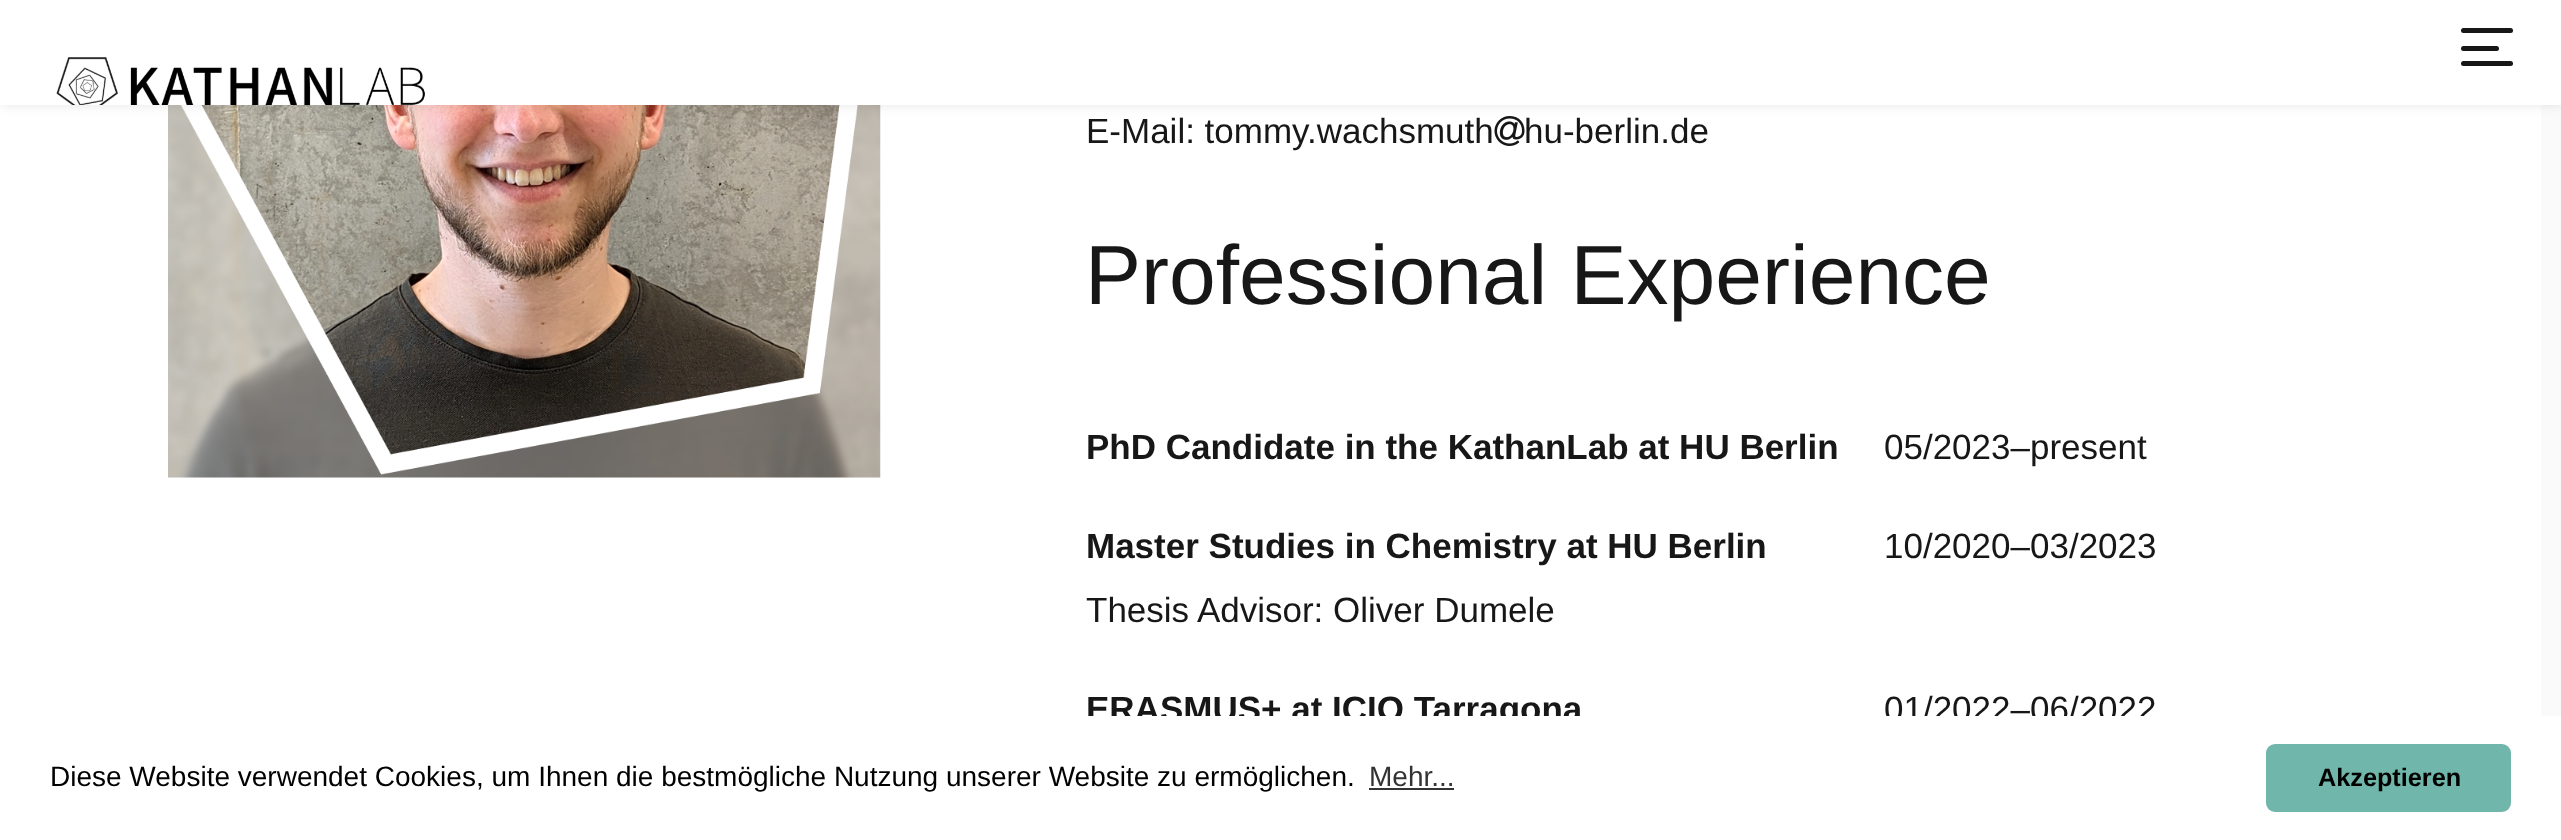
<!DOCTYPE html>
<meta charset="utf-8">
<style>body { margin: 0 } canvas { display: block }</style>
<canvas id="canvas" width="2561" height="840"></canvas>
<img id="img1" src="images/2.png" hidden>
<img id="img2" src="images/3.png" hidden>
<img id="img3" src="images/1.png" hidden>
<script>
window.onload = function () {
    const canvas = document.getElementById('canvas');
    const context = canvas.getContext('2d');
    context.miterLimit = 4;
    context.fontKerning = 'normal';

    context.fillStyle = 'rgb(250, 250, 250)';
    context.fillRect(0, 0, 2561, 840);
    context.fillStyle = 'rgb(255, 255, 255)';
    context.fillRect(0, 105, 2541, 611);
    context.drawImage(document.getElementById('img1'), 168, 105, 713, 373);
    context.drawImage(document.getElementById('img2'), 1494, 116, 31, 30);
    context.fillStyle = 'rgba(0, 0, 0, 0.1)';
    context.filter = 'blur(6px)';
    context.beginPath();
    context.rect(2, 0, 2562, 105);
    context.fill();
    context.filter = 'none';
    context.fillStyle = 'rgb(255, 255, 255)';
    context.fillRect(0, 0, 2561, 105);
    context.drawImage(document.getElementById('img3'), 56, 57, 369, 48);
    context.fillStyle = 'rgb(23, 23, 23)';
    context.beginPath();
    context.roundRect(2461, 46, 38, 5, 2.5);
    context.fill();
    context.beginPath();
    context.roundRect(2461, 28, 52, 5, 2.5);
    context.fill();
    context.beginPath();
    context.roundRect(2461, 61, 52, 5, 2.5);
    context.fill();
    context.font = '35px Liberation Sans';
    context.fillText('E-Mail: tommy.wachsmuth', 1086, 143);
    context.fillText('hu-berlin.de', 1524, 143);
    context.font = '84px Liberation Sans';
    context.fillText('Professional Experience', 1085, 304);
    context.font = 'bold 35px Liberation Sans';
    context.fillText('PhD Candidate in the KathanLab at HU Berlin', 1086, 459);
    context.font = '35px Liberation Sans';
    context.fillText('05/2023–present', 1884, 459);
    context.font = 'bold 35px Liberation Sans';
    context.fillText('Master Studies in Chemistry at HU Berlin', 1086, 558);
    context.font = '35px Liberation Sans';
    context.fillText('Thesis Advisor: Oliver Dumele', 1086, 622);
    context.fillText('10/2020–03/2023', 1884, 558);
    context.font = 'bold 35px Liberation Sans';
    context.fillText('ERASMUS+ at ICIQ Tarragona', 1086, 721);
    context.font = '35px Liberation Sans';
    context.fillText('01/2022–06/2022', 1884, 721);
    context.fillStyle = 'rgb(255, 255, 255)';
    context.fillRect(0, 716, 2561, 124);
    context.font = '28px Liberation Sans';
    context.fillStyle = 'rgb(0, 0, 0)';
    context.fillText('Diese Website verwendet Cookies, um Ihnen die bestmögliche Nutzung unserer Website zu ermöglichen.', 50, 786);
    context.fillStyle = 'rgb(51, 51, 51)';
    context.fillText('Mehr...', 1369, 786);
    context.fillRect(1369, 788, 85, 2);
    context.fillStyle = 'rgb(112, 182, 170)';
    context.beginPath();
    context.roundRect(2266, 744, 245, 68, 9);
    context.fill();
    context.font = 'bold 25.25px Liberation Sans';
    context.fillStyle = 'rgb(0, 0, 0)';
    context.fillText('Akzeptieren', 2318, 786);
};
</script>
